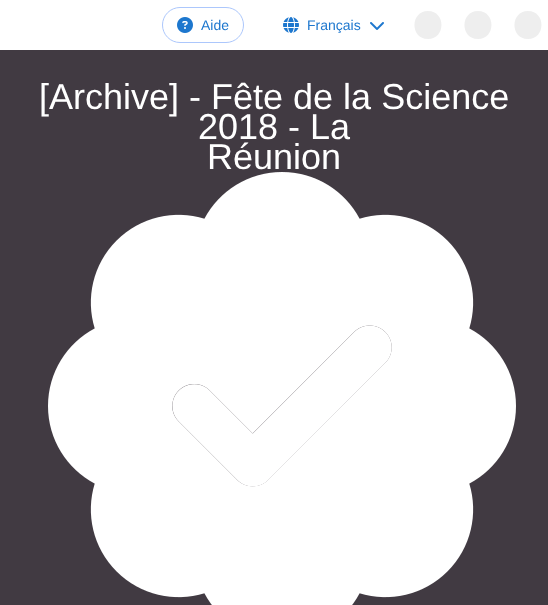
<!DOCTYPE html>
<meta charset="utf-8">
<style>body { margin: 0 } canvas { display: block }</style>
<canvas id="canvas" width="548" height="605"></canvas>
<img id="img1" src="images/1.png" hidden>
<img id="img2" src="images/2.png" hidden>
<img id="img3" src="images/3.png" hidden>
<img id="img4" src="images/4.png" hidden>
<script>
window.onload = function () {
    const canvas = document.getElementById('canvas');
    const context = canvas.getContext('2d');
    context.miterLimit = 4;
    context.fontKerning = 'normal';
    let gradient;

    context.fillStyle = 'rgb(65, 58, 66)';
    context.fillRect(0, 0, 548, 605);
    context.fillStyle = 'rgb(255, 255, 255)';
    context.fillRect(0, 0, 548, 50);
    context.beginPath();
    context.roundRect(162.5, 7.5, 81, 35, 17.5);
    context.strokeStyle = 'rgb(172, 199, 252)';
    context.stroke();
    context.drawImage(document.getElementById('img1'), 177, 17, 16, 16);
    context.drawImage(document.getElementById('img2'), 283, 17, 16, 16);
    context.drawImage(document.getElementById('img3'), 370, 22, 14, 8);
    gradient = context.createLinearGradient(128, 5, 268, 5);
    gradient.addColorStop(0, 'rgb(238, 238, 238)');
    gradient.addColorStop(0.5, 'rgb(214, 214, 214)');
    gradient.addColorStop(1, 'rgb(238, 238, 238)');
    context.fillStyle = gradient;
    context.beginPath();
    context.moveTo(428, 11);
    context.bezierCurveTo(410, 11, 410, 39, 428, 39);
    context.bezierCurveTo(446, 39, 446, 11, 428, 11);
    context.closePath();
    context.moveTo(478, 11);
    context.bezierCurveTo(460, 11, 460, 39, 478, 39);
    context.bezierCurveTo(496, 39, 496, 11, 478, 11);
    context.closePath();
    context.moveTo(528, 11);
    context.bezierCurveTo(510, 11, 510, 39, 528, 39);
    context.bezierCurveTo(546, 39, 546, 11, 528, 11);
    context.closePath();
    context.fill('evenodd');
    context.drawImage(document.getElementById('img4'), 48, 172, 468, 433);
    context.font = '14px Liberation Sans';
    context.fillStyle = 'rgb(29, 119, 206)';
    context.fillText('Aide', 201, 30);
    context.fillText('Français', 307, 30);
    context.font = '36px Liberation Sans';
    context.fillStyle = 'rgb(255, 255, 255)';
    context.fillText('[Archive] - Fête de la Science', 39, 109);
    context.fillText('2018 - La', 198, 139);
    context.fillText('Réunion', 207, 169);
};
</script>
